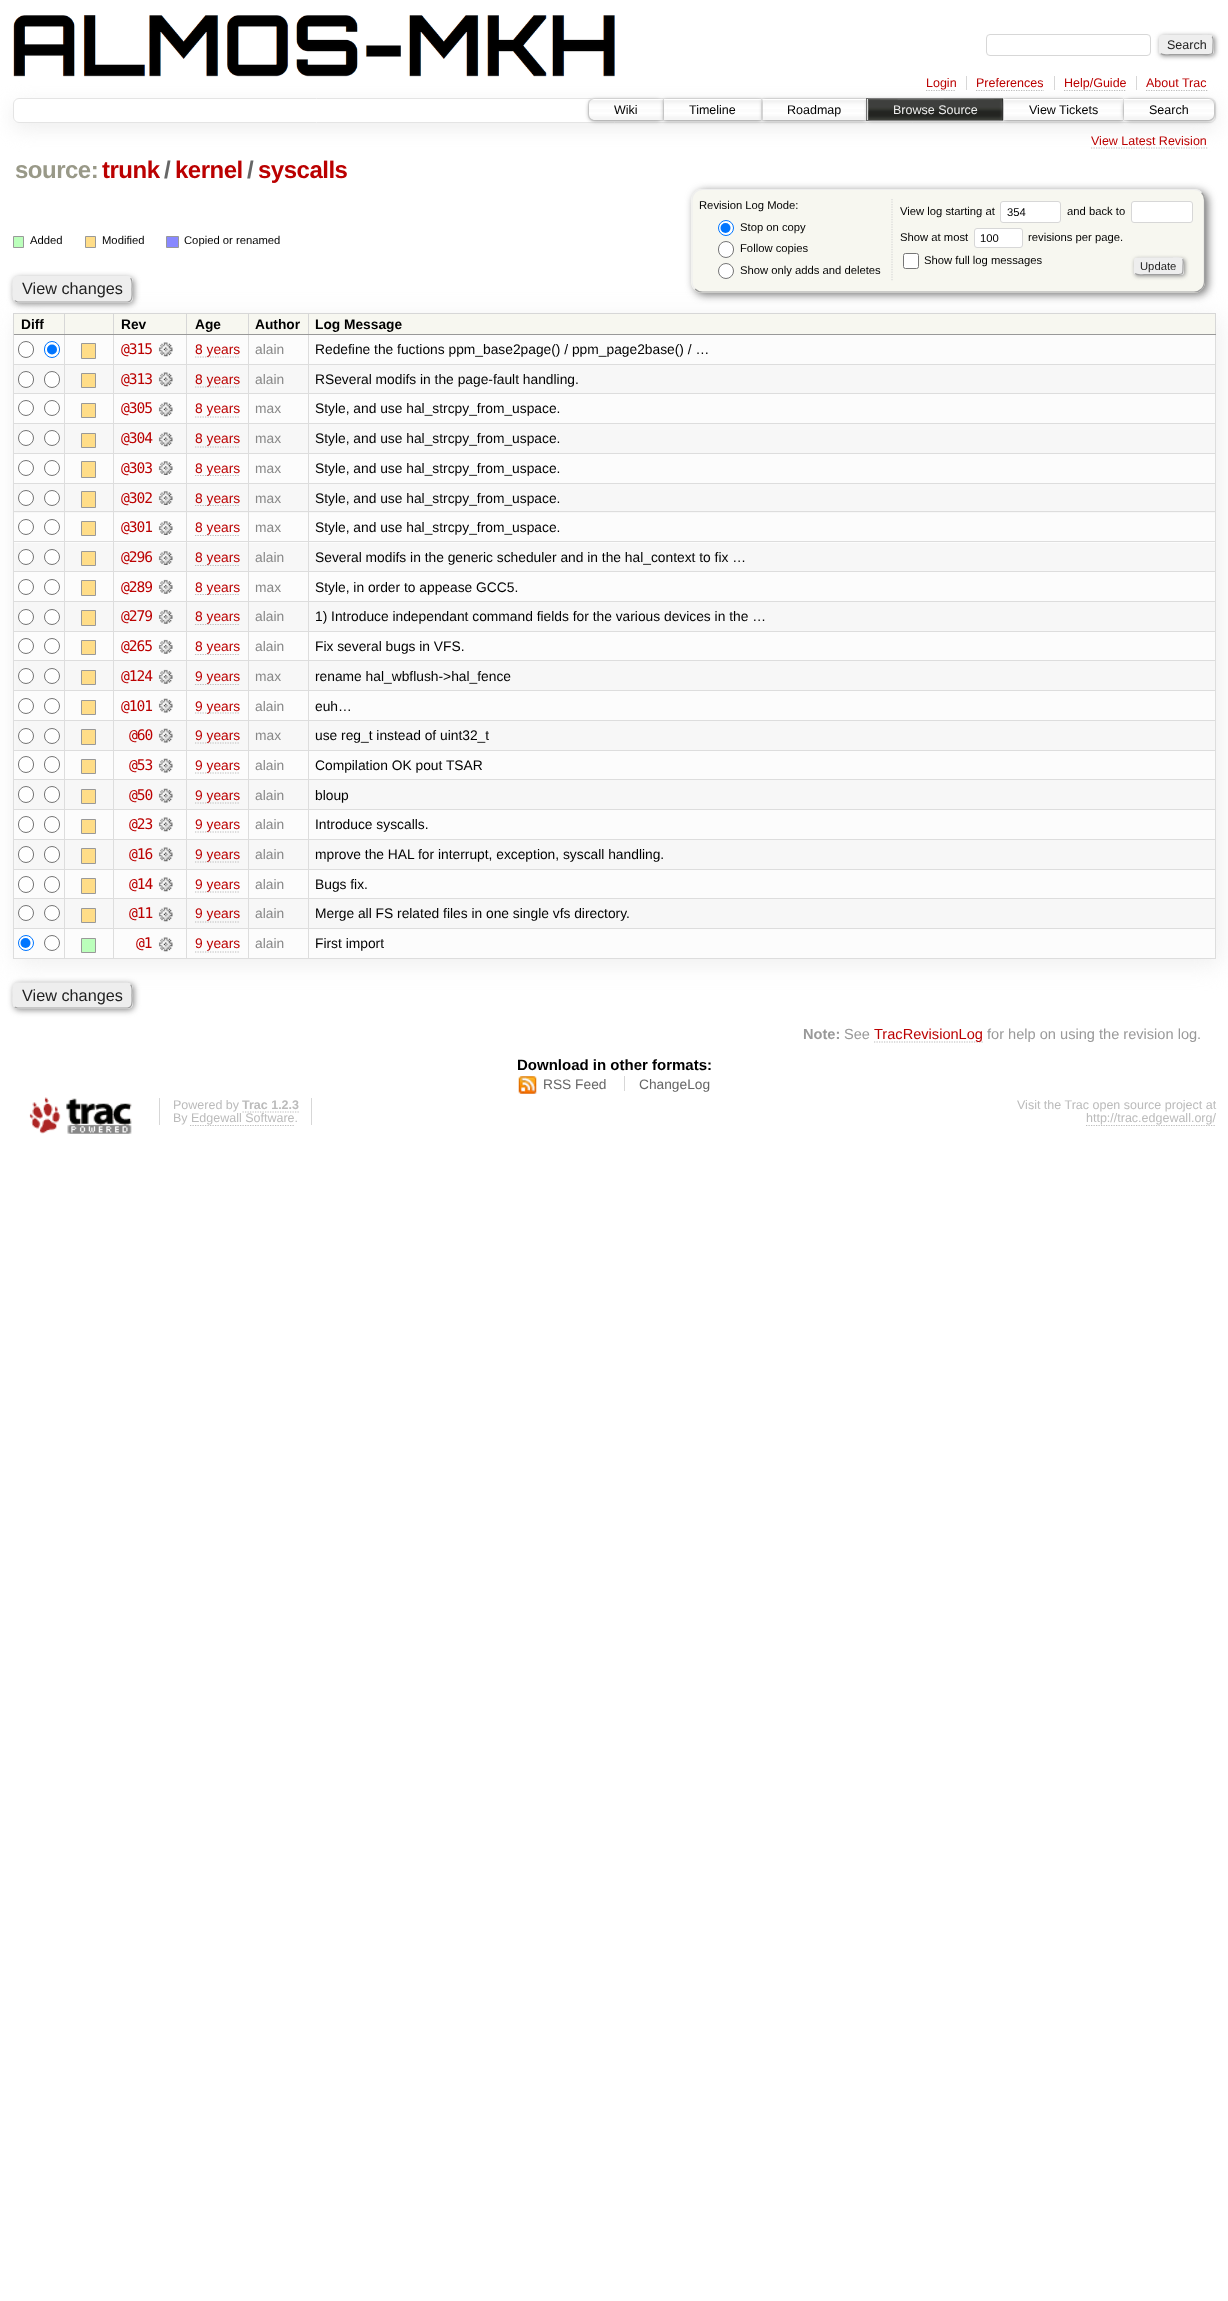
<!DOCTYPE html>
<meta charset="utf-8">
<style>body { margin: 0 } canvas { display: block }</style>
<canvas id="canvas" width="1228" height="2301"></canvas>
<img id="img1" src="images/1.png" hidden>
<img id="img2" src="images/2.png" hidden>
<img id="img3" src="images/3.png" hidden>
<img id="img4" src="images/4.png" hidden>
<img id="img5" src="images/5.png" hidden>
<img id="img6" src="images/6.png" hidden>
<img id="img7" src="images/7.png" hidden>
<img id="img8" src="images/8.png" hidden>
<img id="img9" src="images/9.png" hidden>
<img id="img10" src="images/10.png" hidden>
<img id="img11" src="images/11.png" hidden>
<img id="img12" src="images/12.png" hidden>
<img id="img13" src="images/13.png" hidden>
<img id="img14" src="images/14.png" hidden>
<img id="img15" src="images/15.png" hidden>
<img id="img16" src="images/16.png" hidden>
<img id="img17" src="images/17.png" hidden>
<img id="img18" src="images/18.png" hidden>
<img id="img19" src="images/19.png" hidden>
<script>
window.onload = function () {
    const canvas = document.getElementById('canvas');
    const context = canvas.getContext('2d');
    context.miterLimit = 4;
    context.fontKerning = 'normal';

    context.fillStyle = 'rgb(255, 255, 255)';
    context.fillRect(0, 0, 1228, 2301);
    context.save();
    context.beginPath();
    context.moveTo(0, 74);
    context.lineTo(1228, 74);
    context.lineTo(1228, 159);
    context.lineTo(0, 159);
    context.closePath();
    context.moveTo(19, 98);
    context.lineTo(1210, 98);
    context.bezierCurveTo(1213.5, 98, 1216, 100.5, 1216, 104);
    context.lineTo(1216, 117);
    context.bezierCurveTo(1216, 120.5, 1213.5, 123, 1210, 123);
    context.lineTo(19, 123);
    context.bezierCurveTo(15.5, 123, 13, 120.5, 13, 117);
    context.lineTo(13, 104);
    context.bezierCurveTo(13, 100.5, 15.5, 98, 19, 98);
    context.closePath();
    context.clip('evenodd');
    context.fillStyle = 'rgb(238, 238, 238)';
    context.filter = 'blur(9.5px)';
    context.beginPath();
    context.roundRect(13, 104, 1203, 25, 6);
    context.fill();
    context.filter = 'none';
    context.restore();
    context.drawImage(document.getElementById('img1'), 13, 15, 602, 62);
    context.beginPath();
    context.roundRect(986.5, 34.5, 164, 21, 3.5);
    context.strokeStyle = 'rgb(215, 215, 215)';
    context.stroke();
    context.fillStyle = 'rgb(136, 136, 136)';
    context.filter = 'blur(2.5px)';
    context.beginPath();
    context.roundRect(1160, 36, 55, 20, 4);
    context.fill();
    context.filter = 'none';
    context.fillStyle = 'rgb(238, 238, 238)';
    context.beginPath();
    context.roundRect(1159, 35, 55, 20, 4);
    context.fill();
    context.beginPath();
    context.moveTo(1212, 36.5);
    context.bezierCurveTo(1214, 38.5, 1213, 42.5, 1213, 45);
    context.bezierCurveTo(1213, 56, 1213.5, 54.5, 1202, 54.5);
    context.lineTo(1170.5, 54.5);
    context.bezierCurveTo(1170, 54.5, 1162.5, 55.5, 1160.5, 53.5);
    context.strokeStyle = 'rgb(159, 159, 159)';
    context.lineWidth = 1.2;
    context.stroke();
    context.beginPath();
    context.moveTo(1160.5, 53.5);
    context.bezierCurveTo(1158.5, 51.5, 1159.5, 47.5, 1159.5, 45);
    context.bezierCurveTo(1159.5, 34, 1159, 35.5, 1170.5, 35.5);
    context.lineTo(1202, 35.5);
    context.bezierCurveTo(1202.5, 35.5, 1210, 34.5, 1212, 36.5);
    context.strokeStyle = 'rgb(238, 238, 238)';
    context.stroke();
    context.fillStyle = 'rgb(215, 215, 215)';
    context.fillRect(966, 76, 1, 14);
    context.beginPath();
    context.moveTo(926, 90.5);
    context.lineTo(956, 90.5);
    context.strokeStyle = 'rgb(187, 187, 187)';
    context.setLineDash([1.25, 1.25]);
    context.stroke();
    context.fillRect(1054, 76, 1, 14);
    context.beginPath();
    context.moveTo(976, 90.5);
    context.lineTo(1044, 90.5);
    context.stroke();
    context.fillRect(1136, 76, 1, 14);
    context.beginPath();
    context.moveTo(1064, 90.5);
    context.lineTo(1126, 90.5);
    context.stroke();
    context.beginPath();
    context.moveTo(1146, 90.5);
    context.lineTo(1207.5, 90.5);
    context.stroke();
    context.beginPath();
    context.roundRect(13.5, 98.5, 1202, 24, 5.5);
    context.strokeStyle = 'rgb(228, 228, 228)';
    context.lineWidth = 1;
    context.setLineDash([]);
    context.stroke();
    context.fillStyle = 'rgb(255, 255, 255)';
    context.beginPath();
    context.roundRect(588, 98, 76, 23, [6, 0, 0, 6]);
    context.fill();
    context.drawImage(document.getElementById('img2'), 588, 100, 75, 21);
    context.beginPath();
    context.roundRect(588.5, 98.5, 75, 22, [5.5, 0, 0, 5.5]);
    context.stroke();
    context.save();
    context.beginPath();
    context.moveTo(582, 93);
    context.lineTo(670, 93);
    context.lineTo(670, 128);
    context.lineTo(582, 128);
    context.closePath();
    context.moveTo(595, 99);
    context.lineTo(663, 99);
    context.lineTo(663, 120);
    context.lineTo(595, 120);
    context.bezierCurveTo(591.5, 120, 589, 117.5, 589, 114);
    context.lineTo(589, 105);
    context.bezierCurveTo(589, 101.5, 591.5, 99, 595, 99);
    context.closePath();
    context.clip('evenodd');
    context.fillStyle = 'rgb(153, 153, 153)';
    context.filter = 'blur(2px)';
    context.beginPath();
    context.roundRect(589, 100, 74, 21, 6);
    context.fill();
    context.filter = 'none';
    context.restore();
    context.fillRect(664, 100, 3, 20);
    context.drawImage(document.getElementById('img3'), 662, 100, 99, 20);
    context.strokeRect(663.5, 98.5, 99, 22);
    context.save();
    context.beginPath();
    context.moveTo(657, 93);
    context.lineTo(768, 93);
    context.lineTo(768, 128);
    context.lineTo(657, 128);
    context.closePath();
    context.moveTo(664, 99);
    context.lineTo(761, 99);
    context.lineTo(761, 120);
    context.lineTo(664, 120);
    context.closePath();
    context.clip('evenodd');
    context.fillStyle = 'rgb(153, 153, 153)';
    context.filter = 'blur(2px)';
    context.beginPath();
    context.rect(664, 100, 97, 21);
    context.fill();
    context.filter = 'none';
    context.restore();
    context.fillRect(762, 99, 3, 21);
    context.drawImage(document.getElementById('img4'), 762, 100, 104, 20);
    context.strokeRect(761.5, 98.5, 106, 22);
    context.save();
    context.beginPath();
    context.moveTo(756, 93);
    context.lineTo(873, 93);
    context.lineTo(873, 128);
    context.lineTo(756, 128);
    context.closePath();
    context.moveTo(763, 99);
    context.lineTo(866, 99);
    context.lineTo(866, 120);
    context.lineTo(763, 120);
    context.closePath();
    context.clip('evenodd');
    context.fillStyle = 'rgb(153, 153, 153)';
    context.filter = 'blur(2px)';
    context.beginPath();
    context.rect(763, 100, 103, 21);
    context.fill();
    context.filter = 'none';
    context.restore();
    context.fillRect(867, 99, 1, 21);
    context.drawImage(document.getElementById('img5'), 867, 100, 1, 20);
    context.strokeStyle = 'rgb(102, 102, 102)';
    context.strokeRect(866.5, 98.5, 137, 22);
    context.fillStyle = 'rgb(153, 153, 153)';
    context.filter = 'blur(2px)';
    context.beginPath();
    context.rect(868, 100, 135, 21);
    context.fill();
    context.filter = 'none';
    context.fillStyle = 'rgb(0, 0, 0)';
    context.fillRect(868, 99, 135, 21);
    context.drawImage(document.getElementById('img6'), 867, 98, 136, 22);
    context.fillStyle = 'rgb(255, 255, 255)';
    context.fillRect(1004, 99, 3, 21);
    context.drawImage(document.getElementById('img7'), 1002, 100, 121, 20);
    context.strokeStyle = 'rgb(228, 228, 228)';
    context.strokeRect(1003.5, 98.5, 120, 22);
    context.save();
    context.beginPath();
    context.moveTo(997, 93);
    context.lineTo(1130, 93);
    context.lineTo(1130, 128);
    context.lineTo(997, 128);
    context.closePath();
    context.moveTo(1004, 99);
    context.lineTo(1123, 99);
    context.lineTo(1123, 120);
    context.lineTo(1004, 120);
    context.closePath();
    context.clip('evenodd');
    context.fillStyle = 'rgb(153, 153, 153)';
    context.filter = 'blur(2px)';
    context.beginPath();
    context.rect(1004, 100, 119, 21);
    context.fill();
    context.filter = 'none';
    context.restore();
    context.beginPath();
    context.roundRect(1123, 98, 92, 23, [0, 6, 6, 0]);
    context.fill();
    context.drawImage(document.getElementById('img8'), 1124, 100, 91, 21);
    context.beginPath();
    context.roundRect(1123.5, 98.5, 91, 22, [0, 5.5, 5.5, 0]);
    context.stroke();
    context.save();
    context.beginPath();
    context.moveTo(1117, 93);
    context.lineTo(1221, 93);
    context.lineTo(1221, 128);
    context.lineTo(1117, 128);
    context.closePath();
    context.moveTo(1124, 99);
    context.lineTo(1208, 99);
    context.bezierCurveTo(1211.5, 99, 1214, 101.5, 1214, 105);
    context.lineTo(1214, 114);
    context.bezierCurveTo(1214, 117.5, 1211.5, 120, 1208, 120);
    context.lineTo(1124, 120);
    context.closePath();
    context.clip('evenodd');
    context.fillStyle = 'rgb(153, 153, 153)';
    context.filter = 'blur(2px)';
    context.beginPath();
    context.roundRect(1124, 100, 90, 21, 6);
    context.fill();
    context.filter = 'none';
    context.restore();
    context.beginPath();
    context.moveTo(1091, 148);
    context.lineTo(1207.5, 148);
    context.strokeStyle = 'rgb(187, 187, 187)';
    context.lineWidth = 1.2;
    context.setLineDash([1.25, 1.25]);
    context.stroke();
    context.fillStyle = 'rgb(187, 255, 187)';
    context.beginPath();
    context.rect(13.5, 236.5, 10, 11);
    context.fill();
    context.strokeStyle = 'rgb(153, 153, 153)';
    context.lineWidth = 1;
    context.setLineDash([]);
    context.stroke();
    context.fillStyle = 'rgb(255, 221, 136)';
    context.beginPath();
    context.rect(85.5, 236.5, 10, 11);
    context.fill();
    context.stroke();
    context.fillStyle = 'rgb(136, 136, 255)';
    context.beginPath();
    context.rect(166.5, 236.5, 12, 11);
    context.fill();
    context.stroke();
    context.fillStyle = 'rgb(119, 119, 119)';
    context.filter = 'blur(4px)';
    context.beginPath();
    context.roundRect(694, 191, 514, 104, 11);
    context.fill();
    context.filter = 'none';
    context.fillStyle = 'rgb(238, 238, 238)';
    context.filter = 'blur(12px)';
    context.beginPath();
    context.rect(16, 318, 1204, 646);
    context.fill();
    context.filter = 'none';
    context.fillStyle = 'rgb(247, 247, 240)';
    context.beginPath();
    context.roundRect(691, 189, 514, 104, 11);
    context.fill();
    context.beginPath();
    context.moveTo(1201.5, 192.5);
    context.bezierCurveTo(1203.5, 194.5, 1204.5, 197, 1204.5, 200);
    context.lineTo(1204.5, 281);
    context.bezierCurveTo(1204.5, 284, 1203.5, 287, 1201.5, 289);
    context.bezierCurveTo(1199.5, 291, 1196.5, 292, 1194, 292);
    context.lineTo(702.5, 292);
    context.bezierCurveTo(699.5, 292, 697, 291, 695, 289);
    context.strokeStyle = 'rgb(159, 159, 159)';
    context.lineWidth = 1.2;
    context.stroke();
    context.beginPath();
    context.moveTo(695, 289);
    context.bezierCurveTo(693, 287, 692, 284, 692, 281);
    context.lineTo(692, 200);
    context.bezierCurveTo(692, 197, 693, 194.5, 695, 192.5);
    context.bezierCurveTo(697, 190.5, 699.5, 189.5, 702.5, 189.5);
    context.lineTo(1194, 189.5);
    context.bezierCurveTo(1196.5, 189.5, 1199.5, 190.5, 1201.5, 192.5);
    context.strokeStyle = 'rgb(238, 238, 238)';
    context.stroke();
    context.beginPath();
    context.moveTo(892, 199);
    context.lineTo(892, 281);
    context.strokeStyle = 'rgb(215, 215, 215)';
    context.setLineDash([1.25, 1.25]);
    context.stroke();
    context.fillStyle = 'rgb(255, 255, 255)';
    context.beginPath();
    context.arc(726, 228, 7.5, 0, 2 * Math.PI);
    context.fill();
    context.strokeStyle = 'rgb(0, 117, 255)';
    context.lineWidth = 1;
    context.setLineDash([]);
    context.stroke();
    context.fillStyle = 'rgb(0, 117, 255)';
    context.beginPath();
    context.arc(725.5, 228, 5, 0, 2 * Math.PI);
    context.fill();
    context.fillStyle = 'rgb(255, 255, 255)';
    context.beginPath();
    context.roundRect(718.5, 241.5, 15, 16, 7.5);
    context.fill();
    context.strokeStyle = 'rgb(118, 118, 118)';
    context.stroke();
    context.beginPath();
    context.arc(726, 271, 7.5, 0, 2 * Math.PI);
    context.fill();
    context.stroke();
    context.beginPath();
    context.roundRect(1000.5, 201.5, 60, 21, 2.5);
    context.fill();
    context.strokeStyle = 'rgb(215, 215, 215)';
    context.stroke();
    context.beginPath();
    context.roundRect(1131.5, 201.5, 61, 21, 2.5);
    context.fill();
    context.stroke();
    context.beginPath();
    context.roundRect(974.5, 228.5, 48, 19, 2.5);
    context.fill();
    context.stroke();
    context.beginPath();
    context.roundRect(903.5, 253.5, 15, 15, 2);
    context.fill();
    context.strokeStyle = 'rgb(118, 118, 118)';
    context.stroke();
    context.fillStyle = 'rgb(136, 136, 136)';
    context.filter = 'blur(2px)';
    context.beginPath();
    context.roundRect(1135, 259, 50, 17, 3);
    context.fill();
    context.filter = 'none';
    context.fillStyle = 'rgb(238, 238, 238)';
    context.beginPath();
    context.roundRect(1134, 258, 50, 17, 3);
    context.fill();
    context.beginPath();
    context.moveTo(1182.5, 259);
    context.bezierCurveTo(1184, 260.5, 1183, 264, 1183, 266);
    context.bezierCurveTo(1183, 275.5, 1183.5, 274.5, 1173, 274.5);
    context.lineTo(1144.5, 274.5);
    context.bezierCurveTo(1144, 274.5, 1137, 275.5, 1135, 273.5);
    context.strokeStyle = 'rgb(159, 159, 159)';
    context.lineWidth = 1.2;
    context.stroke();
    context.beginPath();
    context.moveTo(1135, 273.5);
    context.bezierCurveTo(1133.5, 272, 1134.5, 268.5, 1134.5, 266);
    context.bezierCurveTo(1134.5, 257, 1134, 258, 1144.5, 258);
    context.lineTo(1173, 258);
    context.bezierCurveTo(1173.5, 258, 1180.5, 257, 1182.5, 259);
    context.strokeStyle = 'rgb(238, 238, 238)';
    context.stroke();
    context.fillStyle = 'rgb(215, 215, 215)';
    context.fillRect(308, 313, 908, 1);
    context.fillStyle = 'rgb(247, 247, 240)';
    context.fillRect(14, 314, 1201, 20);
    context.fillStyle = 'rgb(221, 221, 221)';
    context.fillRect(13, 364, 1203, 1);
    context.fillRect(13, 393, 1203, 1);
    context.fillRect(13, 423, 1203, 1);
    context.fillRect(13, 453, 1203, 1);
    context.fillRect(13, 483, 1203, 1);
    context.fillStyle = 'rgb(247, 247, 247)';
    context.fillRect(20, 484, 1195, 29);
    context.fillStyle = 'rgb(221, 221, 221)';
    context.fillRect(13, 511, 1203, 1);
    context.fillStyle = 'rgb(252, 252, 252)';
    context.fillRect(14, 513, 1201, 30);
    context.fillStyle = 'rgb(221, 221, 221)';
    context.fillRect(13, 541, 1203, 1);
    context.fillRect(13, 571, 1203, 1);
    context.fillRect(13, 601, 1203, 1);
    context.fillRect(13, 631, 1203, 1);
    context.fillRect(13, 660, 1203, 1);
    context.fillRect(13, 690, 1203, 1);
    context.fillRect(13, 720, 1203, 1);
    context.fillRect(13, 750, 1203, 1);
    context.fillRect(13, 779, 1203, 1);
    context.fillRect(13, 809, 1203, 1);
    context.fillRect(13, 839, 1203, 1);
    context.fillRect(13, 869, 1203, 1);
    context.fillRect(13, 898, 1203, 1);
    context.fillRect(13, 928, 1203, 1);
    context.fillRect(1215, 334, 1, 625);
    context.fillStyle = 'rgb(215, 215, 215)';
    context.fillRect(1215, 313, 1, 22);
    context.fillStyle = 'rgb(252, 252, 252)';
    context.fillRect(14, 335, 1201, 29);
    context.fillStyle = 'rgb(247, 247, 247)';
    context.fillRect(20, 365, 1195, 28);
    context.fillStyle = 'rgb(252, 252, 252)';
    context.fillRect(14, 394, 1201, 29);
    context.fillStyle = 'rgb(247, 247, 247)';
    context.fillRect(20, 424, 1195, 29);
    context.fillStyle = 'rgb(252, 252, 252)';
    context.fillRect(14, 454, 1201, 29);
    context.fillStyle = 'rgb(247, 247, 247)';
    context.fillRect(20, 543, 1195, 28);
    context.fillStyle = 'rgb(252, 252, 252)';
    context.fillRect(14, 572, 1201, 29);
    context.fillStyle = 'rgb(247, 247, 247)';
    context.fillRect(20, 602, 1195, 29);
    context.fillStyle = 'rgb(252, 252, 252)';
    context.fillRect(14, 632, 1201, 28);
    context.fillStyle = 'rgb(247, 247, 247)';
    context.fillRect(20, 661, 1195, 29);
    context.fillStyle = 'rgb(252, 252, 252)';
    context.fillRect(14, 691, 1201, 29);
    context.fillStyle = 'rgb(247, 247, 247)';
    context.fillRect(20, 721, 1195, 29);
    context.fillStyle = 'rgb(252, 252, 252)';
    context.fillRect(14, 751, 1201, 28);
    context.fillStyle = 'rgb(247, 247, 247)';
    context.fillRect(20, 780, 1195, 29);
    context.fillStyle = 'rgb(252, 252, 252)';
    context.fillRect(14, 810, 1201, 29);
    context.fillStyle = 'rgb(247, 247, 247)';
    context.fillRect(20, 840, 1195, 29);
    context.fillStyle = 'rgb(252, 252, 252)';
    context.fillRect(14, 870, 1201, 28);
    context.fillStyle = 'rgb(247, 247, 247)';
    context.fillRect(20, 899, 1195, 29);
    context.fillStyle = 'rgb(252, 252, 252)';
    context.fillRect(14, 929, 1201, 29);
    context.fillStyle = 'rgb(221, 221, 221)';
    context.fillRect(308, 958, 908, 1);
    context.fillRect(308, 334, 1, 625);
    context.fillStyle = 'rgb(153, 153, 153)';
    context.fillRect(308, 334, 908, 1);
    context.fillStyle = 'rgb(215, 215, 215)';
    context.fillRect(308, 313, 1, 22);
    context.fillRect(248, 313, 61, 1);
    context.fillStyle = 'rgb(221, 221, 221)';
    context.fillRect(248, 958, 61, 1);
    context.fillRect(248, 334, 1, 625);
    context.fillStyle = 'rgb(153, 153, 153)';
    context.fillRect(248, 334, 61, 1);
    context.fillStyle = 'rgb(215, 215, 215)';
    context.fillRect(248, 313, 1, 22);
    context.fillRect(186, 313, 63, 1);
    context.fillStyle = 'rgb(221, 221, 221)';
    context.fillRect(186, 958, 63, 1);
    context.fillRect(186, 334, 1, 625);
    context.fillStyle = 'rgb(153, 153, 153)';
    context.fillRect(186, 334, 63, 1);
    context.fillStyle = 'rgb(215, 215, 215)';
    context.fillRect(186, 313, 1, 22);
    context.fillRect(113, 313, 75, 1);
    context.fillStyle = 'rgb(221, 221, 221)';
    context.fillRect(113, 958, 75, 1);
    context.fillRect(113, 334, 1, 625);
    context.fillStyle = 'rgb(153, 153, 153)';
    context.fillRect(113, 334, 75, 1);
    context.fillStyle = 'rgb(215, 215, 215)';
    context.fillRect(113, 313, 1, 22);
    context.fillRect(64, 313, 50, 1);
    context.fillStyle = 'rgb(221, 221, 221)';
    context.fillRect(64, 958, 50, 1);
    context.fillRect(64, 334, 1, 625);
    context.fillStyle = 'rgb(153, 153, 153)';
    context.fillRect(64, 334, 50, 1);
    context.fillStyle = 'rgb(215, 215, 215)';
    context.fillRect(64, 313, 1, 22);
    context.fillRect(13, 313, 52, 1);
    context.fillStyle = 'rgb(221, 221, 221)';
    context.fillRect(13, 958, 52, 1);
    context.fillRect(13, 334, 1, 625);
    context.fillStyle = 'rgb(153, 153, 153)';
    context.fillRect(13, 334, 52, 1);
    context.fillStyle = 'rgb(215, 215, 215)';
    context.fillRect(13, 313, 1, 22);
    context.fillStyle = 'rgb(136, 136, 136)';
    context.filter = 'blur(3px)';
    context.beginPath();
    context.roundRect(14, 278, 120, 26, 5);
    context.fill();
    context.filter = 'none';
    context.fillStyle = 'rgb(238, 238, 238)';
    context.beginPath();
    context.roundRect(13, 276, 120, 27, 5);
    context.fill();
    context.beginPath();
    context.moveTo(130.5, 278);
    context.bezierCurveTo(133, 280.5, 132, 286.5, 132, 289.5);
    context.bezierCurveTo(132, 293, 133.5, 302, 127.5, 302);
    context.lineTo(17.5, 302);
    context.lineTo(14.5, 300.5);
    context.strokeStyle = 'rgb(159, 159, 159)';
    context.stroke();
    context.beginPath();
    context.moveTo(14.5, 300.5);
    context.bezierCurveTo(12, 298, 13, 292.5, 13, 289.5);
    context.bezierCurveTo(13, 286, 11.5, 277, 17.5, 277);
    context.lineTo(127.5, 277);
    context.lineTo(130.5, 278);
    context.strokeStyle = 'rgb(238, 238, 238)';
    context.stroke();
    context.fillStyle = 'rgb(255, 255, 255)';
    context.beginPath();
    context.roundRect(18.5, 341.5, 15, 16, 7.5);
    context.fill();
    context.strokeStyle = 'rgb(118, 118, 118)';
    context.lineWidth = 1;
    context.stroke();
    context.beginPath();
    context.roundRect(44.5, 341.5, 15, 16, 7.5);
    context.fill();
    context.strokeStyle = 'rgb(0, 117, 255)';
    context.stroke();
    context.fillStyle = 'rgb(0, 117, 255)';
    context.beginPath();
    context.arc(52, 349.5, 5, 0, 2 * Math.PI);
    context.fill();
    context.fillStyle = 'rgb(255, 221, 136)';
    context.beginPath();
    context.rect(81.5, 343.5, 14, 15);
    context.fill();
    context.strokeStyle = 'rgb(153, 153, 153)';
    context.stroke();
    context.drawImage(document.getElementById('img9'), 158, 342, 15, 15);
    context.beginPath();
    context.moveTo(195, 357);
    context.lineTo(240, 357);
    context.strokeStyle = 'rgb(187, 187, 187)';
    context.lineWidth = 1.2;
    context.setLineDash([1.25, 1.25]);
    context.stroke();
    context.fillStyle = 'rgb(255, 255, 255)';
    context.beginPath();
    context.roundRect(18.5, 371.5, 15, 16, 7.5);
    context.fill();
    context.strokeStyle = 'rgb(118, 118, 118)';
    context.lineWidth = 1;
    context.setLineDash([]);
    context.stroke();
    context.beginPath();
    context.roundRect(44.5, 371.5, 15, 16, 7.5);
    context.fill();
    context.stroke();
    context.fillStyle = 'rgb(255, 221, 136)';
    context.beginPath();
    context.rect(81.5, 373.5, 14, 14);
    context.fill();
    context.strokeStyle = 'rgb(153, 153, 153)';
    context.stroke();
    context.drawImage(document.getElementById('img10'), 158, 372, 15, 15);
    context.beginPath();
    context.moveTo(195, 387);
    context.lineTo(240, 387);
    context.strokeStyle = 'rgb(187, 187, 187)';
    context.lineWidth = 1.2;
    context.setLineDash([1.25, 1.25]);
    context.stroke();
    context.fillStyle = 'rgb(255, 255, 255)';
    context.beginPath();
    context.arc(26, 408, 7.5, 0, 2 * Math.PI);
    context.fill();
    context.strokeStyle = 'rgb(118, 118, 118)';
    context.lineWidth = 1;
    context.setLineDash([]);
    context.stroke();
    context.beginPath();
    context.arc(52, 408, 7.5, 0, 2 * Math.PI);
    context.fill();
    context.stroke();
    context.fillStyle = 'rgb(255, 221, 136)';
    context.beginPath();
    context.rect(81.5, 403.5, 14, 14);
    context.fill();
    context.strokeStyle = 'rgb(153, 153, 153)';
    context.stroke();
    context.drawImage(document.getElementById('img9'), 158, 402, 15, 15);
    context.beginPath();
    context.moveTo(195, 417);
    context.lineTo(240, 417);
    context.strokeStyle = 'rgb(187, 187, 187)';
    context.lineWidth = 1.2;
    context.setLineDash([1.25, 1.25]);
    context.stroke();
    context.fillStyle = 'rgb(255, 255, 255)';
    context.beginPath();
    context.arc(26, 438, 7.5, 0, 2 * Math.PI);
    context.fill();
    context.strokeStyle = 'rgb(118, 118, 118)';
    context.lineWidth = 1;
    context.setLineDash([]);
    context.stroke();
    context.beginPath();
    context.arc(52, 438, 7.5, 0, 2 * Math.PI);
    context.fill();
    context.stroke();
    context.fillStyle = 'rgb(255, 221, 136)';
    context.beginPath();
    context.rect(81.5, 433.5, 14, 14);
    context.fill();
    context.strokeStyle = 'rgb(153, 153, 153)';
    context.stroke();
    context.drawImage(document.getElementById('img10'), 158, 432, 15, 15);
    context.beginPath();
    context.moveTo(195, 447);
    context.lineTo(240, 447);
    context.strokeStyle = 'rgb(187, 187, 187)';
    context.lineWidth = 1.2;
    context.setLineDash([1.25, 1.25]);
    context.stroke();
    context.fillStyle = 'rgb(255, 255, 255)';
    context.beginPath();
    context.arc(26, 468, 7.5, 0, 2 * Math.PI);
    context.fill();
    context.strokeStyle = 'rgb(118, 118, 118)';
    context.lineWidth = 1;
    context.setLineDash([]);
    context.stroke();
    context.beginPath();
    context.arc(52, 468, 7.5, 0, 2 * Math.PI);
    context.fill();
    context.stroke();
    context.fillStyle = 'rgb(255, 221, 136)';
    context.beginPath();
    context.rect(81.5, 461.5, 14, 16);
    context.fill();
    context.strokeStyle = 'rgb(153, 153, 153)';
    context.stroke();
    context.drawImage(document.getElementById('img11'), 158, 461, 15, 14);
    context.beginPath();
    context.moveTo(195, 475.5);
    context.lineTo(240, 475.5);
    context.strokeStyle = 'rgb(187, 187, 187)';
    context.lineWidth = 1.2;
    context.setLineDash([1.25, 1.25]);
    context.stroke();
    context.fillStyle = 'rgb(255, 255, 255)';
    context.beginPath();
    context.arc(26, 498, 7.5, 0, 2 * Math.PI);
    context.fill();
    context.strokeStyle = 'rgb(118, 118, 118)';
    context.lineWidth = 1;
    context.setLineDash([]);
    context.stroke();
    context.beginPath();
    context.arc(52, 498, 7.5, 0, 2 * Math.PI);
    context.fill();
    context.stroke();
    context.fillStyle = 'rgb(255, 221, 136)';
    context.beginPath();
    context.rect(81.5, 491.5, 14, 16);
    context.fill();
    context.strokeStyle = 'rgb(153, 153, 153)';
    context.stroke();
    context.drawImage(document.getElementById('img12'), 158, 491, 15, 14);
    context.beginPath();
    context.moveTo(195, 505.5);
    context.lineTo(240, 505.5);
    context.strokeStyle = 'rgb(187, 187, 187)';
    context.lineWidth = 1.2;
    context.setLineDash([1.25, 1.25]);
    context.stroke();
    context.fillStyle = 'rgb(255, 255, 255)';
    context.beginPath();
    context.arc(26, 527, 7.5, 0, 2 * Math.PI);
    context.fill();
    context.strokeStyle = 'rgb(118, 118, 118)';
    context.lineWidth = 1;
    context.setLineDash([]);
    context.stroke();
    context.beginPath();
    context.arc(52, 527, 7.5, 0, 2 * Math.PI);
    context.fill();
    context.stroke();
    context.fillStyle = 'rgb(255, 221, 136)';
    context.beginPath();
    context.rect(81.5, 521.5, 14, 14);
    context.fill();
    context.strokeStyle = 'rgb(153, 153, 153)';
    context.stroke();
    context.drawImage(document.getElementById('img11'), 158, 521, 15, 14);
    context.beginPath();
    context.moveTo(195, 535.5);
    context.lineTo(240, 535.5);
    context.strokeStyle = 'rgb(187, 187, 187)';
    context.lineWidth = 1.2;
    context.setLineDash([1.25, 1.25]);
    context.stroke();
    context.fillStyle = 'rgb(255, 255, 255)';
    context.beginPath();
    context.arc(26, 557, 7.5, 0, 2 * Math.PI);
    context.fill();
    context.strokeStyle = 'rgb(118, 118, 118)';
    context.lineWidth = 1;
    context.setLineDash([]);
    context.stroke();
    context.beginPath();
    context.arc(52, 557, 7.5, 0, 2 * Math.PI);
    context.fill();
    context.stroke();
    context.fillStyle = 'rgb(255, 221, 136)';
    context.beginPath();
    context.rect(81.5, 551.5, 14, 14);
    context.fill();
    context.strokeStyle = 'rgb(153, 153, 153)';
    context.stroke();
    context.drawImage(document.getElementById('img12'), 158, 551, 15, 14);
    context.beginPath();
    context.moveTo(195, 565.5);
    context.lineTo(240, 565.5);
    context.strokeStyle = 'rgb(187, 187, 187)';
    context.lineWidth = 1.2;
    context.setLineDash([1.25, 1.25]);
    context.stroke();
    context.fillStyle = 'rgb(255, 255, 255)';
    context.beginPath();
    context.arc(26, 587, 7.5, 0, 2 * Math.PI);
    context.fill();
    context.strokeStyle = 'rgb(118, 118, 118)';
    context.lineWidth = 1;
    context.setLineDash([]);
    context.stroke();
    context.beginPath();
    context.arc(52, 587, 7.5, 0, 2 * Math.PI);
    context.fill();
    context.stroke();
    context.fillStyle = 'rgb(255, 221, 136)';
    context.beginPath();
    context.rect(81.5, 580.5, 14, 15);
    context.fill();
    context.strokeStyle = 'rgb(153, 153, 153)';
    context.stroke();
    context.drawImage(document.getElementById('img13'), 158, 579, 15, 15);
    context.beginPath();
    context.moveTo(195, 594.5);
    context.lineTo(240, 594.5);
    context.strokeStyle = 'rgb(187, 187, 187)';
    context.lineWidth = 1.2;
    context.setLineDash([1.25, 1.25]);
    context.stroke();
    context.fillStyle = 'rgb(255, 255, 255)';
    context.beginPath();
    context.arc(26, 617, 7.5, 0, 2 * Math.PI);
    context.fill();
    context.strokeStyle = 'rgb(118, 118, 118)';
    context.lineWidth = 1;
    context.setLineDash([]);
    context.stroke();
    context.beginPath();
    context.arc(52, 617, 7.5, 0, 2 * Math.PI);
    context.fill();
    context.stroke();
    context.fillStyle = 'rgb(255, 221, 136)';
    context.beginPath();
    context.rect(81.5, 610.5, 14, 15);
    context.fill();
    context.strokeStyle = 'rgb(153, 153, 153)';
    context.stroke();
    context.drawImage(document.getElementById('img14'), 158, 609, 15, 15);
    context.beginPath();
    context.moveTo(195, 624.5);
    context.lineTo(240, 624.5);
    context.strokeStyle = 'rgb(187, 187, 187)';
    context.lineWidth = 1.2;
    context.setLineDash([1.25, 1.25]);
    context.stroke();
    context.fillStyle = 'rgb(255, 255, 255)';
    context.beginPath();
    context.arc(26, 646, 7.5, 0, 2 * Math.PI);
    context.fill();
    context.strokeStyle = 'rgb(118, 118, 118)';
    context.lineWidth = 1;
    context.setLineDash([]);
    context.stroke();
    context.beginPath();
    context.arc(52, 646, 7.5, 0, 2 * Math.PI);
    context.fill();
    context.stroke();
    context.fillStyle = 'rgb(255, 221, 136)';
    context.beginPath();
    context.rect(81.5, 640.5, 14, 14);
    context.fill();
    context.strokeStyle = 'rgb(153, 153, 153)';
    context.stroke();
    context.drawImage(document.getElementById('img15'), 158, 639, 15, 15);
    context.beginPath();
    context.moveTo(195, 654.5);
    context.lineTo(240, 654.5);
    context.strokeStyle = 'rgb(187, 187, 187)';
    context.lineWidth = 1.2;
    context.setLineDash([1.25, 1.25]);
    context.stroke();
    context.fillStyle = 'rgb(255, 255, 255)';
    context.beginPath();
    context.arc(26, 676, 7.5, 0, 2 * Math.PI);
    context.fill();
    context.strokeStyle = 'rgb(118, 118, 118)';
    context.lineWidth = 1;
    context.setLineDash([]);
    context.stroke();
    context.beginPath();
    context.arc(52, 676, 7.5, 0, 2 * Math.PI);
    context.fill();
    context.stroke();
    context.fillStyle = 'rgb(255, 221, 136)';
    context.beginPath();
    context.rect(81.5, 670.5, 14, 14);
    context.fill();
    context.strokeStyle = 'rgb(153, 153, 153)';
    context.stroke();
    context.drawImage(document.getElementById('img14'), 158, 669, 15, 15);
    context.beginPath();
    context.moveTo(195, 684.5);
    context.lineTo(240, 684.5);
    context.strokeStyle = 'rgb(187, 187, 187)';
    context.lineWidth = 1.2;
    context.setLineDash([1.25, 1.25]);
    context.stroke();
    context.fillStyle = 'rgb(255, 255, 255)';
    context.beginPath();
    context.arc(26, 706, 7.5, 0, 2 * Math.PI);
    context.fill();
    context.strokeStyle = 'rgb(118, 118, 118)';
    context.lineWidth = 1;
    context.setLineDash([]);
    context.stroke();
    context.beginPath();
    context.arc(52, 706, 7.5, 0, 2 * Math.PI);
    context.fill();
    context.stroke();
    context.fillStyle = 'rgb(255, 221, 136)';
    context.beginPath();
    context.rect(81.5, 700.5, 14, 14);
    context.fill();
    context.strokeStyle = 'rgb(153, 153, 153)';
    context.stroke();
    context.drawImage(document.getElementById('img16'), 158, 698, 15, 15);
    context.beginPath();
    context.moveTo(195, 713);
    context.lineTo(240, 713);
    context.strokeStyle = 'rgb(187, 187, 187)';
    context.lineWidth = 1.2;
    context.setLineDash([1.25, 1.25]);
    context.stroke();
    context.fillStyle = 'rgb(255, 255, 255)';
    context.beginPath();
    context.arc(26, 736, 7.5, 0, 2 * Math.PI);
    context.fill();
    context.strokeStyle = 'rgb(118, 118, 118)';
    context.lineWidth = 1;
    context.setLineDash([]);
    context.stroke();
    context.beginPath();
    context.arc(52, 736, 7.5, 0, 2 * Math.PI);
    context.fill();
    context.stroke();
    context.fillStyle = 'rgb(255, 221, 136)';
    context.beginPath();
    context.rect(81.5, 729.5, 14, 15);
    context.fill();
    context.strokeStyle = 'rgb(153, 153, 153)';
    context.stroke();
    context.drawImage(document.getElementById('img17'), 158, 728, 15, 15);
    context.beginPath();
    context.moveTo(195, 743);
    context.lineTo(240, 743);
    context.strokeStyle = 'rgb(187, 187, 187)';
    context.lineWidth = 1.2;
    context.setLineDash([1.25, 1.25]);
    context.stroke();
    context.fillStyle = 'rgb(255, 255, 255)';
    context.beginPath();
    context.roundRect(18.5, 756.5, 15, 16, 7.5);
    context.fill();
    context.strokeStyle = 'rgb(118, 118, 118)';
    context.lineWidth = 1;
    context.setLineDash([]);
    context.stroke();
    context.beginPath();
    context.roundRect(44.5, 756.5, 15, 16, 7.5);
    context.fill();
    context.stroke();
    context.fillStyle = 'rgb(255, 221, 136)';
    context.beginPath();
    context.rect(81.5, 759.5, 14, 14);
    context.fill();
    context.strokeStyle = 'rgb(153, 153, 153)';
    context.stroke();
    context.drawImage(document.getElementById('img16'), 158, 758, 15, 15);
    context.beginPath();
    context.moveTo(195, 773);
    context.lineTo(240, 773);
    context.strokeStyle = 'rgb(187, 187, 187)';
    context.lineWidth = 1.2;
    context.setLineDash([1.25, 1.25]);
    context.stroke();
    context.fillStyle = 'rgb(255, 255, 255)';
    context.beginPath();
    context.roundRect(18.5, 786.5, 15, 16, 7.5);
    context.fill();
    context.strokeStyle = 'rgb(118, 118, 118)';
    context.lineWidth = 1;
    context.setLineDash([]);
    context.stroke();
    context.beginPath();
    context.roundRect(44.5, 786.5, 15, 16, 7.5);
    context.fill();
    context.stroke();
    context.fillStyle = 'rgb(255, 221, 136)';
    context.beginPath();
    context.rect(81.5, 789.5, 14, 14);
    context.fill();
    context.strokeStyle = 'rgb(153, 153, 153)';
    context.stroke();
    context.drawImage(document.getElementById('img17'), 158, 788, 15, 15);
    context.beginPath();
    context.moveTo(195, 803);
    context.lineTo(240, 803);
    context.strokeStyle = 'rgb(187, 187, 187)';
    context.lineWidth = 1.2;
    context.setLineDash([1.25, 1.25]);
    context.stroke();
    context.fillStyle = 'rgb(255, 255, 255)';
    context.beginPath();
    context.roundRect(18.5, 816.5, 15, 16, 7.5);
    context.fill();
    context.strokeStyle = 'rgb(118, 118, 118)';
    context.lineWidth = 1;
    context.setLineDash([]);
    context.stroke();
    context.beginPath();
    context.roundRect(44.5, 816.5, 15, 16, 7.5);
    context.fill();
    context.stroke();
    context.fillStyle = 'rgb(255, 221, 136)';
    context.beginPath();
    context.rect(81.5, 819.5, 14, 14);
    context.fill();
    context.strokeStyle = 'rgb(153, 153, 153)';
    context.stroke();
    context.drawImage(document.getElementById('img9'), 158, 817, 15, 15);
    context.beginPath();
    context.moveTo(195, 832);
    context.lineTo(240, 832);
    context.strokeStyle = 'rgb(187, 187, 187)';
    context.lineWidth = 1.2;
    context.setLineDash([1.25, 1.25]);
    context.stroke();
    context.fillStyle = 'rgb(255, 255, 255)';
    context.beginPath();
    context.roundRect(18.5, 846.5, 15, 16, 7.5);
    context.fill();
    context.strokeStyle = 'rgb(118, 118, 118)';
    context.lineWidth = 1;
    context.setLineDash([]);
    context.stroke();
    context.beginPath();
    context.roundRect(44.5, 846.5, 15, 16, 7.5);
    context.fill();
    context.stroke();
    context.fillStyle = 'rgb(255, 221, 136)';
    context.beginPath();
    context.rect(81.5, 848.5, 14, 15);
    context.fill();
    context.strokeStyle = 'rgb(153, 153, 153)';
    context.stroke();
    context.drawImage(document.getElementById('img10'), 158, 847, 15, 15);
    context.beginPath();
    context.moveTo(195, 862);
    context.lineTo(240, 862);
    context.strokeStyle = 'rgb(187, 187, 187)';
    context.lineWidth = 1.2;
    context.setLineDash([1.25, 1.25]);
    context.stroke();
    context.fillStyle = 'rgb(255, 255, 255)';
    context.beginPath();
    context.roundRect(18.5, 876.5, 15, 16, 7.5);
    context.fill();
    context.strokeStyle = 'rgb(118, 118, 118)';
    context.lineWidth = 1;
    context.setLineDash([]);
    context.stroke();
    context.beginPath();
    context.roundRect(44.5, 876.5, 15, 16, 7.5);
    context.fill();
    context.stroke();
    context.fillStyle = 'rgb(255, 221, 136)';
    context.beginPath();
    context.rect(81.5, 878.5, 14, 15);
    context.fill();
    context.strokeStyle = 'rgb(153, 153, 153)';
    context.stroke();
    context.drawImage(document.getElementById('img9'), 158, 877, 15, 15);
    context.beginPath();
    context.moveTo(195, 892);
    context.lineTo(240, 892);
    context.strokeStyle = 'rgb(187, 187, 187)';
    context.lineWidth = 1.2;
    context.setLineDash([1.25, 1.25]);
    context.stroke();
    context.fillStyle = 'rgb(255, 255, 255)';
    context.beginPath();
    context.arc(26, 913, 7.5, 0, 2 * Math.PI);
    context.fill();
    context.strokeStyle = 'rgb(118, 118, 118)';
    context.lineWidth = 1;
    context.setLineDash([]);
    context.stroke();
    context.beginPath();
    context.arc(52, 913, 7.5, 0, 2 * Math.PI);
    context.fill();
    context.stroke();
    context.fillStyle = 'rgb(255, 221, 136)';
    context.beginPath();
    context.rect(81.5, 908.5, 14, 14);
    context.fill();
    context.strokeStyle = 'rgb(153, 153, 153)';
    context.stroke();
    context.drawImage(document.getElementById('img10'), 158, 907, 15, 15);
    context.beginPath();
    context.moveTo(195, 922);
    context.lineTo(240, 922);
    context.strokeStyle = 'rgb(187, 187, 187)';
    context.lineWidth = 1.2;
    context.setLineDash([1.25, 1.25]);
    context.stroke();
    context.fillStyle = 'rgb(255, 255, 255)';
    context.beginPath();
    context.arc(26, 943, 7.5, 0, 2 * Math.PI);
    context.fill();
    context.strokeStyle = 'rgb(0, 117, 255)';
    context.lineWidth = 1;
    context.setLineDash([]);
    context.stroke();
    context.fillStyle = 'rgb(0, 117, 255)';
    context.beginPath();
    context.arc(25.5, 943, 5, 0, 2 * Math.PI);
    context.fill();
    context.fillStyle = 'rgb(255, 255, 255)';
    context.beginPath();
    context.arc(52, 943, 7.5, 0, 2 * Math.PI);
    context.fill();
    context.strokeStyle = 'rgb(118, 118, 118)';
    context.stroke();
    context.fillStyle = 'rgb(187, 255, 187)';
    context.beginPath();
    context.rect(81.5, 938.5, 14, 14);
    context.fill();
    context.strokeStyle = 'rgb(153, 153, 153)';
    context.stroke();
    context.drawImage(document.getElementById('img9'), 158, 937, 15, 15);
    context.beginPath();
    context.moveTo(195, 952);
    context.lineTo(240, 952);
    context.strokeStyle = 'rgb(187, 187, 187)';
    context.lineWidth = 1.2;
    context.setLineDash([1.25, 1.25]);
    context.stroke();
    context.fillStyle = 'rgb(136, 136, 136)';
    context.filter = 'blur(3px)';
    context.beginPath();
    context.roundRect(14, 984, 120, 26, 5);
    context.fill();
    context.filter = 'none';
    context.fillStyle = 'rgb(238, 238, 238)';
    context.beginPath();
    context.roundRect(13, 983, 120, 26, 5);
    context.fill();
    context.beginPath();
    context.moveTo(130.5, 984.5);
    context.bezierCurveTo(133, 987, 132, 992.5, 132, 995.5);
    context.bezierCurveTo(132, 999, 133.5, 1008, 127.5, 1008);
    context.lineTo(17.5, 1008);
    context.lineTo(14.5, 1007);
    context.strokeStyle = 'rgb(159, 159, 159)';
    context.setLineDash([]);
    context.stroke();
    context.beginPath();
    context.moveTo(14.5, 1007);
    context.bezierCurveTo(12, 1004.5, 13, 998.5, 13, 995.5);
    context.bezierCurveTo(13, 992, 11.5, 983, 17.5, 983);
    context.lineTo(127.5, 983);
    context.lineTo(130.5, 984.5);
    context.strokeStyle = 'rgb(238, 238, 238)';
    context.stroke();
    context.beginPath();
    context.moveTo(874, 1042);
    context.lineTo(984, 1042);
    context.strokeStyle = 'rgb(187, 187, 187)';
    context.setLineDash([1.25, 1.25]);
    context.stroke();
    context.drawImage(document.getElementById('img18'), 518, 1076, 19, 18);
    context.fillStyle = 'rgb(215, 215, 215)';
    context.fillRect(624, 1076, 1, 15);
    context.drawImage(document.getElementById('img19'), 29, 1097, 103, 37);
    context.fillRect(311, 1098, 1, 27);
    context.fillRect(159, 1098, 1, 27);
    context.beginPath();
    context.moveTo(242.5, 1112);
    context.lineTo(299, 1112);
    context.stroke();
    context.beginPath();
    context.moveTo(190, 1125.5);
    context.lineTo(294, 1125.5);
    context.stroke();
    context.beginPath();
    context.moveTo(1086, 1125.5);
    context.lineTo(1216, 1125.5);
    context.stroke();
    context.font = '12.5px Liberation Sans';
    context.fillStyle = 'rgb(34, 34, 34)';
    context.fillText('Search', 1167, 49);
    context.fillStyle = 'rgb(187, 0, 0)';
    context.fillText('Login', 926, 87);
    context.fillText('Preferences', 976, 87);
    context.fillText('Help/Guide', 1064, 87);
    context.fillText('About Trac', 1146, 87);
    context.fillStyle = 'rgb(0, 0, 0)';
    context.fillText('Wiki', 614, 114);
    context.fillText('Timeline', 689, 114);
    context.fillText('Roadmap', 787, 114);
    context.fillStyle = 'rgb(238, 238, 238)';
    context.fillText('Browse Source', 893, 114);
    context.fillStyle = 'rgb(0, 0, 0)';
    context.fillText('View Tickets', 1029, 114);
    context.fillText('Search', 1149, 114);
    context.fillStyle = 'rgb(187, 0, 0)';
    context.fillText('View Latest Revision', 1091, 145);
    context.letterSpacing = '-0.5px';
    context.font = 'bold 24px Liberation Sans';
    context.fillStyle = 'rgb(153, 153, 136)';
    context.fillText('source:', 15, 178);
    context.fillStyle = 'rgb(187, 0, 0)';
    context.fillText('trunk', 102, 178);
    context.fillStyle = 'rgb(102, 102, 102)';
    context.fillText('/', 164, 178);
    context.fillStyle = 'rgb(187, 0, 0)';
    context.fillText('kernel', 175, 178);
    context.fillStyle = 'rgb(102, 102, 102)';
    context.fillText('/', 247, 178);
    context.fillStyle = 'rgb(187, 0, 0)';
    context.fillText('syscalls', 258, 178);
    context.letterSpacing = '0px';
    context.font = '11.25px Liberation Sans';
    context.fillStyle = 'rgb(0, 0, 0)';
    context.fillText('Added', 30, 244);
    context.fillText('Modified', 102, 244);
    context.fillText('Copied or renamed', 184, 244);
    context.fillText('Revision Log Mode:', 699, 209);
    context.fillText('Stop on copy', 740, 231);
    context.fillText('Follow copies', 740, 252);
    context.fillText('Show only adds and deletes', 740, 274);
    context.fillText('View log starting at', 900, 215);
    context.fillText('354', 1007, 216);
    context.fillText('and back to', 1067, 215);
    context.fillText('Show at most', 900, 241);
    context.fillText('100', 980, 242);
    context.fillText('revisions per page.', 1028, 241);
    context.fillText('Show full log messages', 924, 264);
    context.fillStyle = 'rgb(34, 34, 34)';
    context.fillText('Update', 1140, 270);
    context.font = '16.25px Liberation Sans';
    context.fillText('View changes', 22, 294);
    context.font = 'bold 13.75px Liberation Sans';
    context.fillStyle = 'rgb(0, 0, 0)';
    context.fillText('Diff', 21, 329);
    context.fillText('Rev', 121, 329);
    context.fillText('Age', 195, 329);
    context.fillText('Author', 255, 329);
    context.fillText('Log Message', 315, 329);
    context.letterSpacing = '-1px';
    context.font = '14.6px DejaVu Sans Mono';
    context.fillStyle = 'rgb(187, 0, 0)';
    context.fillText('@315', 121, 354);
    context.letterSpacing = '0px';
    context.font = '13.8px Liberation Sans';
    context.fillText('8 years', 195, 354);
    context.fillStyle = 'rgb(136, 136, 136)';
    context.fillText('alain', 255, 354);
    context.fillStyle = 'rgb(0, 0, 0)';
    context.fillText('Redefine the fuctions ppm_base2page() / ppm_page2base() / …', 315, 354);
    context.letterSpacing = '-1px';
    context.font = '14.6px DejaVu Sans Mono';
    context.fillStyle = 'rgb(187, 0, 0)';
    context.fillText('@313', 121, 384);
    context.letterSpacing = '0px';
    context.font = '13.8px Liberation Sans';
    context.fillText('8 years', 195, 384);
    context.fillStyle = 'rgb(136, 136, 136)';
    context.fillText('alain', 255, 384);
    context.fillStyle = 'rgb(0, 0, 0)';
    context.fillText('RSeveral modifs in the page-fault handling.', 315, 384);
    context.letterSpacing = '-1px';
    context.font = '14.6px DejaVu Sans Mono';
    context.fillStyle = 'rgb(187, 0, 0)';
    context.fillText('@305', 121, 413);
    context.letterSpacing = '0px';
    context.font = '13.8px Liberation Sans';
    context.fillText('8 years', 195, 413);
    context.fillStyle = 'rgb(136, 136, 136)';
    context.fillText('max', 255, 413);
    context.fillStyle = 'rgb(0, 0, 0)';
    context.fillText('Style, and use hal_strcpy_from_uspace.', 315, 413);
    context.letterSpacing = '-1px';
    context.font = '14.6px DejaVu Sans Mono';
    context.fillStyle = 'rgb(187, 0, 0)';
    context.fillText('@304', 121, 443);
    context.letterSpacing = '0px';
    context.font = '13.8px Liberation Sans';
    context.fillText('8 years', 195, 443);
    context.fillStyle = 'rgb(136, 136, 136)';
    context.fillText('max', 255, 443);
    context.fillStyle = 'rgb(0, 0, 0)';
    context.fillText('Style, and use hal_strcpy_from_uspace.', 315, 443);
    context.letterSpacing = '-1px';
    context.font = '14.6px DejaVu Sans Mono';
    context.fillStyle = 'rgb(187, 0, 0)';
    context.fillText('@303', 121, 473);
    context.letterSpacing = '0px';
    context.font = '13.8px Liberation Sans';
    context.fillText('8 years', 195, 473);
    context.fillStyle = 'rgb(136, 136, 136)';
    context.fillText('max', 255, 473);
    context.fillStyle = 'rgb(0, 0, 0)';
    context.fillText('Style, and use hal_strcpy_from_uspace.', 315, 473);
    context.letterSpacing = '-1px';
    context.font = '14.6px DejaVu Sans Mono';
    context.fillStyle = 'rgb(187, 0, 0)';
    context.fillText('@302', 121, 503);
    context.letterSpacing = '0px';
    context.font = '13.8px Liberation Sans';
    context.fillText('8 years', 195, 503);
    context.fillStyle = 'rgb(136, 136, 136)';
    context.fillText('max', 255, 503);
    context.fillStyle = 'rgb(0, 0, 0)';
    context.fillText('Style, and use hal_strcpy_from_uspace.', 315, 503);
    context.letterSpacing = '-1px';
    context.font = '14.6px DejaVu Sans Mono';
    context.fillStyle = 'rgb(187, 0, 0)';
    context.fillText('@301', 121, 532);
    context.letterSpacing = '0px';
    context.font = '13.8px Liberation Sans';
    context.fillText('8 years', 195, 532);
    context.fillStyle = 'rgb(136, 136, 136)';
    context.fillText('max', 255, 532);
    context.fillStyle = 'rgb(0, 0, 0)';
    context.fillText('Style, and use hal_strcpy_from_uspace.', 315, 532);
    context.letterSpacing = '-1px';
    context.font = '14.6px DejaVu Sans Mono';
    context.fillStyle = 'rgb(187, 0, 0)';
    context.fillText('@296', 121, 562);
    context.letterSpacing = '0px';
    context.font = '13.8px Liberation Sans';
    context.fillText('8 years', 195, 562);
    context.fillStyle = 'rgb(136, 136, 136)';
    context.fillText('alain', 255, 562);
    context.fillStyle = 'rgb(0, 0, 0)';
    context.fillText('Several modifs in the generic scheduler and in the hal_context to fix …', 315, 562);
    context.letterSpacing = '-1px';
    context.font = '14.6px DejaVu Sans Mono';
    context.fillStyle = 'rgb(187, 0, 0)';
    context.fillText('@289', 121, 592);
    context.letterSpacing = '0px';
    context.font = '13.8px Liberation Sans';
    context.fillText('8 years', 195, 592);
    context.fillStyle = 'rgb(136, 136, 136)';
    context.fillText('max', 255, 592);
    context.fillStyle = 'rgb(0, 0, 0)';
    context.fillText('Style, in order to appease GCC5.', 315, 592);
    context.letterSpacing = '-1px';
    context.font = '14.6px DejaVu Sans Mono';
    context.fillStyle = 'rgb(187, 0, 0)';
    context.fillText('@279', 121, 621);
    context.letterSpacing = '0px';
    context.font = '13.8px Liberation Sans';
    context.fillText('8 years', 195, 621);
    context.fillStyle = 'rgb(136, 136, 136)';
    context.fillText('alain', 255, 621);
    context.fillStyle = 'rgb(0, 0, 0)';
    context.fillText('1) Introduce independant command fields for the various devices in the …', 315, 621);
    context.letterSpacing = '-1px';
    context.font = '14.6px DejaVu Sans Mono';
    context.fillStyle = 'rgb(187, 0, 0)';
    context.fillText('@265', 121, 651);
    context.letterSpacing = '0px';
    context.font = '13.8px Liberation Sans';
    context.fillText('8 years', 195, 651);
    context.fillStyle = 'rgb(136, 136, 136)';
    context.fillText('alain', 255, 651);
    context.fillStyle = 'rgb(0, 0, 0)';
    context.fillText('Fix several bugs in VFS.', 315, 651);
    context.letterSpacing = '-1px';
    context.font = '14.6px DejaVu Sans Mono';
    context.fillStyle = 'rgb(187, 0, 0)';
    context.fillText('@124', 121, 681);
    context.letterSpacing = '0px';
    context.font = '13.8px Liberation Sans';
    context.fillText('9 years', 195, 681);
    context.fillStyle = 'rgb(136, 136, 136)';
    context.fillText('max', 255, 681);
    context.fillStyle = 'rgb(0, 0, 0)';
    context.fillText('rename hal_wbflush->hal_fence', 315, 681);
    context.letterSpacing = '-1px';
    context.font = '14.6px DejaVu Sans Mono';
    context.fillStyle = 'rgb(187, 0, 0)';
    context.fillText('@101', 121, 711);
    context.letterSpacing = '0px';
    context.font = '13.8px Liberation Sans';
    context.fillText('9 years', 195, 711);
    context.fillStyle = 'rgb(136, 136, 136)';
    context.fillText('alain', 255, 711);
    context.fillStyle = 'rgb(0, 0, 0)';
    context.fillText('euh…', 315, 711);
    context.letterSpacing = '-1px';
    context.font = '14.6px DejaVu Sans Mono';
    context.fillStyle = 'rgb(187, 0, 0)';
    context.fillText('@60', 129, 740);
    context.letterSpacing = '0px';
    context.font = '13.8px Liberation Sans';
    context.fillText('9 years', 195, 740);
    context.fillStyle = 'rgb(136, 136, 136)';
    context.fillText('max', 255, 740);
    context.fillStyle = 'rgb(0, 0, 0)';
    context.fillText('use reg_t instead of uint32_t', 315, 740);
    context.letterSpacing = '-1px';
    context.font = '14.6px DejaVu Sans Mono';
    context.fillStyle = 'rgb(187, 0, 0)';
    context.fillText('@53', 129, 770);
    context.letterSpacing = '0px';
    context.font = '13.8px Liberation Sans';
    context.fillText('9 years', 195, 770);
    context.fillStyle = 'rgb(136, 136, 136)';
    context.fillText('alain', 255, 770);
    context.fillStyle = 'rgb(0, 0, 0)';
    context.fillText('Compilation OK pout TSAR', 315, 770);
    context.letterSpacing = '-1px';
    context.font = '14.6px DejaVu Sans Mono';
    context.fillStyle = 'rgb(187, 0, 0)';
    context.fillText('@50', 129, 800);
    context.letterSpacing = '0px';
    context.font = '13.8px Liberation Sans';
    context.fillText('9 years', 195, 800);
    context.fillStyle = 'rgb(136, 136, 136)';
    context.fillText('alain', 255, 800);
    context.fillStyle = 'rgb(0, 0, 0)';
    context.fillText('bloup', 315, 800);
    context.letterSpacing = '-1px';
    context.font = '14.6px DejaVu Sans Mono';
    context.fillStyle = 'rgb(187, 0, 0)';
    context.fillText('@23', 129, 829);
    context.letterSpacing = '0px';
    context.font = '13.8px Liberation Sans';
    context.fillText('9 years', 195, 829);
    context.fillStyle = 'rgb(136, 136, 136)';
    context.fillText('alain', 255, 829);
    context.fillStyle = 'rgb(0, 0, 0)';
    context.fillText('Introduce syscalls.', 315, 829);
    context.letterSpacing = '-1px';
    context.font = '14.6px DejaVu Sans Mono';
    context.fillStyle = 'rgb(187, 0, 0)';
    context.fillText('@16', 129, 859);
    context.letterSpacing = '0px';
    context.font = '13.8px Liberation Sans';
    context.fillText('9 years', 195, 859);
    context.fillStyle = 'rgb(136, 136, 136)';
    context.fillText('alain', 255, 859);
    context.fillStyle = 'rgb(0, 0, 0)';
    context.fillText('mprove the HAL for interrupt, exception, syscall handling.', 315, 859);
    context.letterSpacing = '-1px';
    context.font = '14.6px DejaVu Sans Mono';
    context.fillStyle = 'rgb(187, 0, 0)';
    context.fillText('@14', 129, 889);
    context.letterSpacing = '0px';
    context.font = '13.8px Liberation Sans';
    context.fillText('9 years', 195, 889);
    context.fillStyle = 'rgb(136, 136, 136)';
    context.fillText('alain', 255, 889);
    context.fillStyle = 'rgb(0, 0, 0)';
    context.fillText('Bugs fix.', 315, 889);
    context.letterSpacing = '-1px';
    context.font = '14.6px DejaVu Sans Mono';
    context.fillStyle = 'rgb(187, 0, 0)';
    context.fillText('@11', 129, 918);
    context.letterSpacing = '0px';
    context.font = '13.8px Liberation Sans';
    context.fillText('9 years', 195, 918);
    context.fillStyle = 'rgb(136, 136, 136)';
    context.fillText('alain', 255, 918);
    context.fillStyle = 'rgb(0, 0, 0)';
    context.fillText('Merge all FS related files in one single vfs directory.', 315, 918);
    context.letterSpacing = '-1px';
    context.font = '14.6px DejaVu Sans Mono';
    context.fillStyle = 'rgb(187, 0, 0)';
    context.fillText('@1', 136, 948);
    context.letterSpacing = '0px';
    context.font = '13.8px Liberation Sans';
    context.fillText('9 years', 195, 948);
    context.fillStyle = 'rgb(136, 136, 136)';
    context.fillText('alain', 255, 948);
    context.fillStyle = 'rgb(0, 0, 0)';
    context.fillText('First import', 315, 948);
    context.font = '16.25px Liberation Sans';
    context.fillStyle = 'rgb(34, 34, 34)';
    context.fillText('View changes', 22, 1001);
    context.font = 'bold 14.6px Liberation Sans';
    context.fillStyle = 'rgb(153, 153, 153)';
    context.fillText('Note:', 803, 1039);
    context.font = '14.6px Liberation Sans';
    context.fillText('See', 844, 1039);
    context.fillStyle = 'rgb(187, 0, 0)';
    context.fillText('TracRevisionLog', 874, 1039);
    context.fillStyle = 'rgb(153, 153, 153)';
    context.fillText('for help on using the revision log.', 987, 1039);
    context.font = 'bold 15px Liberation Sans';
    context.fillStyle = 'rgb(0, 0, 0)';
    context.fillText('Download in other formats:', 517, 1070);
    context.font = '13.75px Liberation Sans';
    context.fillStyle = 'rgb(102, 102, 102)';
    context.fillText('RSS Feed', 543, 1089);
    context.fillText('ChangeLog', 639, 1089);
    context.font = '12.5px Liberation Sans';
    context.fillStyle = 'rgb(187, 187, 187)';
    context.fillText('Powered by', 173, 1109);
    context.font = 'bold 12.5px Liberation Sans';
    context.fillText('Trac 1.2.3', 242, 1109);
    context.font = '12.5px Liberation Sans';
    context.fillText('By', 173, 1122);
    context.fillText('Edgewall Software.', 191, 1122);
    context.fillText('Visit the Trac open source project at', 1017, 1109);
    context.fillText('http://trac.edgewall.org/', 1086, 1122);
};
</script>
